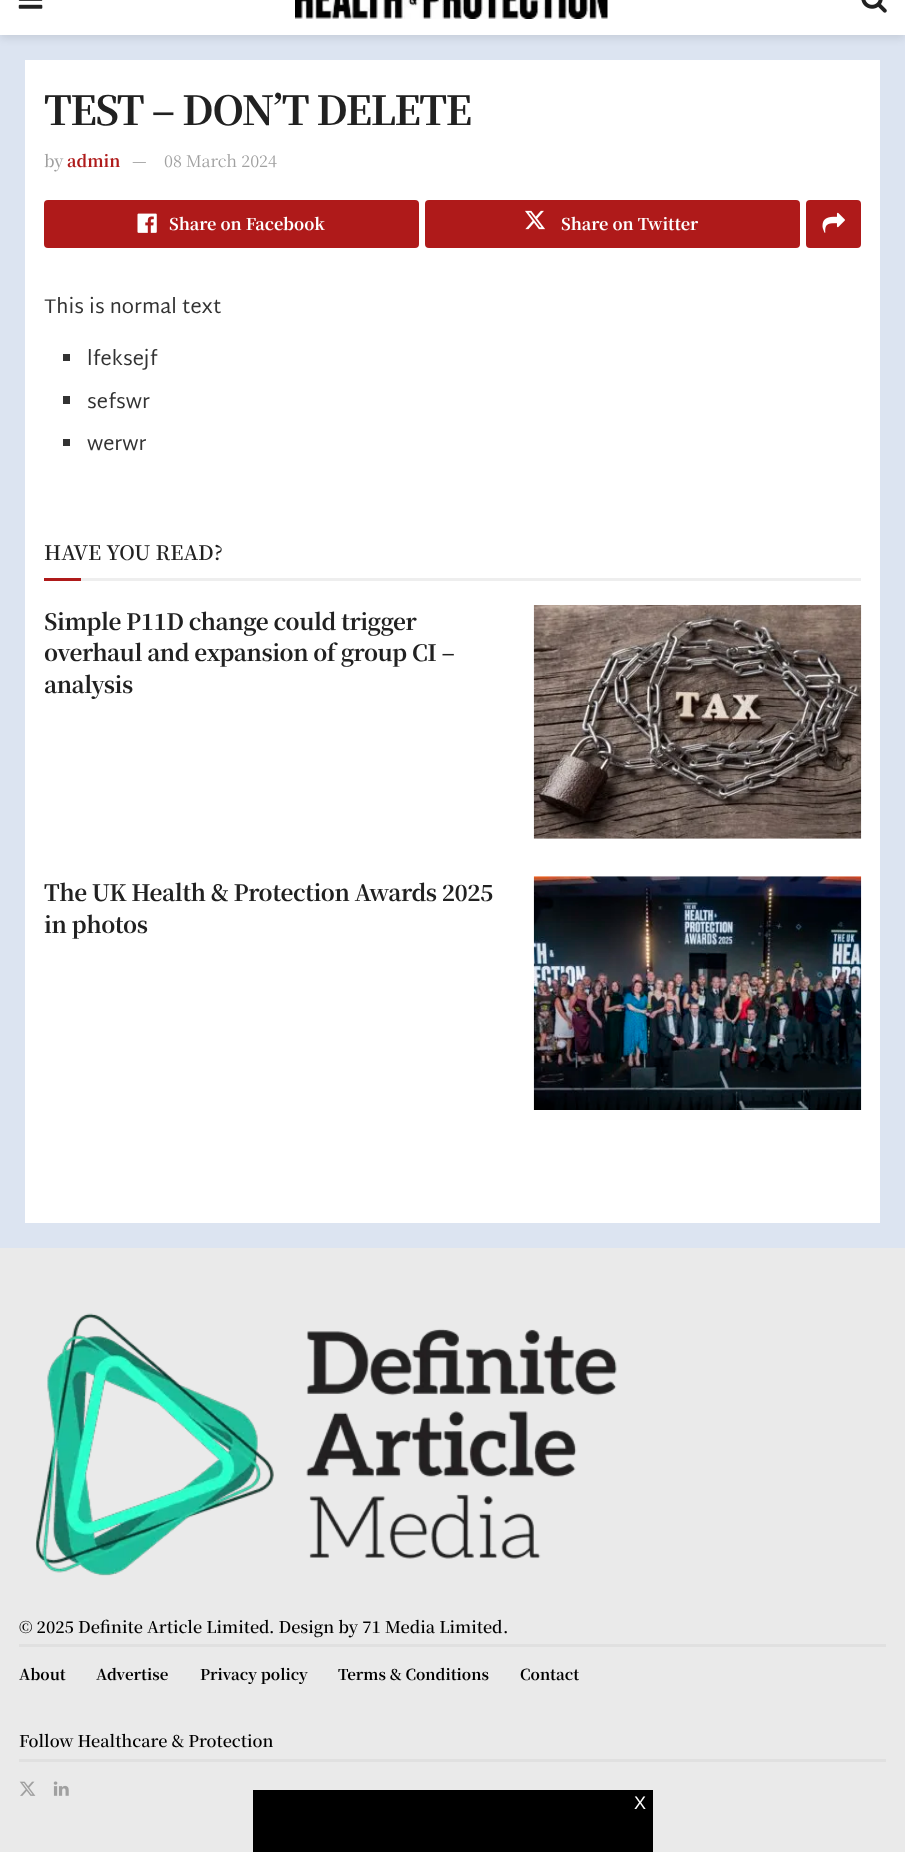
<!DOCTYPE html>
<meta charset="utf-8">
<style>body { margin: 0 } canvas { display: block }</style>
<canvas id="canvas" width="905" height="1852"></canvas>
<img id="img1" src="images/1.png" hidden>
<img id="img2" src="images/2.png" hidden>
<img id="img3" src="images/3.png" hidden>
<img id="img4" src="images/4.png" hidden>
<img id="img5" src="images/5.png" hidden>
<img id="img6" src="images/6.png" hidden>
<img id="img7" src="images/7.png" hidden>
<img id="img8" src="images/8.png" hidden>
<img id="img9" src="images/9.png" hidden>
<img id="img10" src="images/10.png" hidden>
<img id="img11" src="images/11.png" hidden>
<script>
window.onload = function () {
    const canvas = document.getElementById('canvas');
    const context = canvas.getContext('2d');
    context.miterLimit = 4;
    context.fontKerning = 'normal';

    context.fillStyle = 'rgb(220, 228, 241)';
    context.fillRect(0, 0, 905, 1852);
    context.fillStyle = 'rgba(0, 0, 0, 0.1)';
    context.filter = 'blur(4px)';
    context.beginPath();
    context.rect(0, -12, 905, 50);
    context.fill();
    context.filter = 'none';
    context.fillStyle = 'rgb(255, 255, 255)';
    context.fillRect(0, 0, 905, 35);
    context.drawImage(document.getElementById('img1'), 18, 0, 25, 9);
    context.drawImage(document.getElementById('img2'), 295, 0, 313, 19);
    context.drawImage(document.getElementById('img3'), 861, 0, 26, 13);
    context.fillRect(25, 60, 855, 1163);
    context.fillStyle = 'rgb(175, 26, 26)';
    context.beginPath();
    context.roundRect(44, 200, 375, 48, 4);
    context.fill();
    context.drawImage(document.getElementById('img4'), 137, 213, 20, 20);
    context.beginPath();
    context.roundRect(425, 200, 375, 48, 4);
    context.fill();
    context.drawImage(document.getElementById('img5'), 525, 210, 20, 20);
    context.beginPath();
    context.roundRect(806, 200, 55, 48, 4);
    context.fill();
    context.drawImage(document.getElementById('img6'), 822, 212, 23, 21);
    context.fillStyle = 'rgb(51, 51, 51)';
    context.fillRect(63, 354, 7, 7);
    context.fillRect(63, 396, 7, 8);
    context.fillRect(63, 439, 7, 7);
    context.fillStyle = 'rgb(238, 238, 238)';
    context.fillRect(81, 578, 780, 3);
    context.fillStyle = 'rgb(175, 26, 26)';
    context.fillRect(44, 578, 37, 3);
    context.fillStyle = 'rgb(247, 247, 247)';
    context.fillRect(534, 838, 327, 1);
    context.drawImage(document.getElementById('img7'), 533, 605, 329, 234);
    context.fillRect(534, 876, 327, 1);
    context.drawImage(document.getElementById('img8'), 533, 876, 329, 234);
    context.fillStyle = 'rgb(234, 234, 234)';
    context.fillRect(0, 1248, 905, 604);
    context.drawImage(document.getElementById('img9'), 35, 1313, 582, 263);
    context.fillStyle = 'rgb(224, 224, 224)';
    context.fillRect(19, 1644, 867, 3);
    context.fillRect(19, 1759, 867, 3);
    context.drawImage(document.getElementById('img10'), 19, 1781, 17, 15);
    context.drawImage(document.getElementById('img11'), 53, 1781, 16, 15);
    context.fillStyle = 'rgb(0, 0, 0)';
    context.fillRect(253, 1790, 400, 62);
    context.letterSpacing = '-1.6px';
    context.font = 'bold 40px Noto Serif JP';
    context.fillStyle = 'rgb(33, 33, 33)';
    context.fillText('TEST – DON’T DELETE', 44, 125);
    context.letterSpacing = '0px';
    context.font = '500 16.25px Noto Serif JP';
    context.fillStyle = 'rgb(160, 160, 160)';
    context.fillText('by', 44, 167);
    context.font = 'bold 16.25px Noto Serif JP';
    context.fillStyle = 'rgb(175, 26, 26)';
    context.fillText('admin', 67, 167);
    context.font = '500 16.25px Noto Serif JP';
    context.fillStyle = 'rgb(160, 160, 160)';
    context.fillText('—', 132, 167);
    context.font = '200 16.25px Noto Serif JP';
    context.fillText('08 March 2024', 164, 167);
    context.font = 'bold 16.25px Noto Serif JP';
    context.fillStyle = 'rgb(255, 255, 255)';
    context.fillText('Share on Facebook', 169, 230);
    context.fillText('Share on Twitter', 561, 230);
    context.font = '20px Martel Sans';
    context.fillStyle = 'rgb(51, 51, 51)';
    context.fillText('This is normal text', 44, 313);
    context.fillText('lfeksejf', 87, 365);
    context.fillText('sefswr', 87, 408);
    context.fillText('werwr', 87, 450);
    context.font = '600 20px Noto Serif JP';
    context.fillStyle = 'rgb(33, 33, 33)';
    context.fillText('HAVE YOU READ?', 44, 560);
    context.letterSpacing = '-0.45px';
    context.font = 'bold 22.5px Noto Serif JP';
    context.fillText('Simple P11D change could trigger', 44, 630);
    context.fillText('overhaul and expansion of group CI –', 44, 661);
    context.fillText('analysis', 44, 693);
    context.fillText('The UK Health & Protection Awards 2025', 44, 901);
    context.fillText('in photos', 44, 933);
    context.letterSpacing = '0px';
    context.font = '600 16.25px Noto Serif JP';
    context.fillStyle = 'rgb(0, 0, 0)';
    context.fillText('© 2025', 19, 1633);
    context.fillText('Definite Article Limited', 78, 1633);
    context.fillText('. Design by 71 Media Limited', 269, 1633);
    context.fillText('.', 503, 1633);
    context.font = 'bold 15px Noto Serif JP';
    context.fillText('About', 19, 1680);
    context.fillText('Advertise', 96, 1680);
    context.fillText('Privacy policy', 200, 1680);
    context.fillText('Terms & Conditions', 338, 1680);
    context.fillText('Contact', 520, 1680);
    context.font = '600 16.25px Noto Serif JP';
    context.fillText('Follow Healthcare & Protection', 19, 1747);
    context.font = '18px Liberation Sans';
    context.fillStyle = 'rgb(255, 255, 255)';
    context.fillText('X', 634, 1809);
};
</script>
